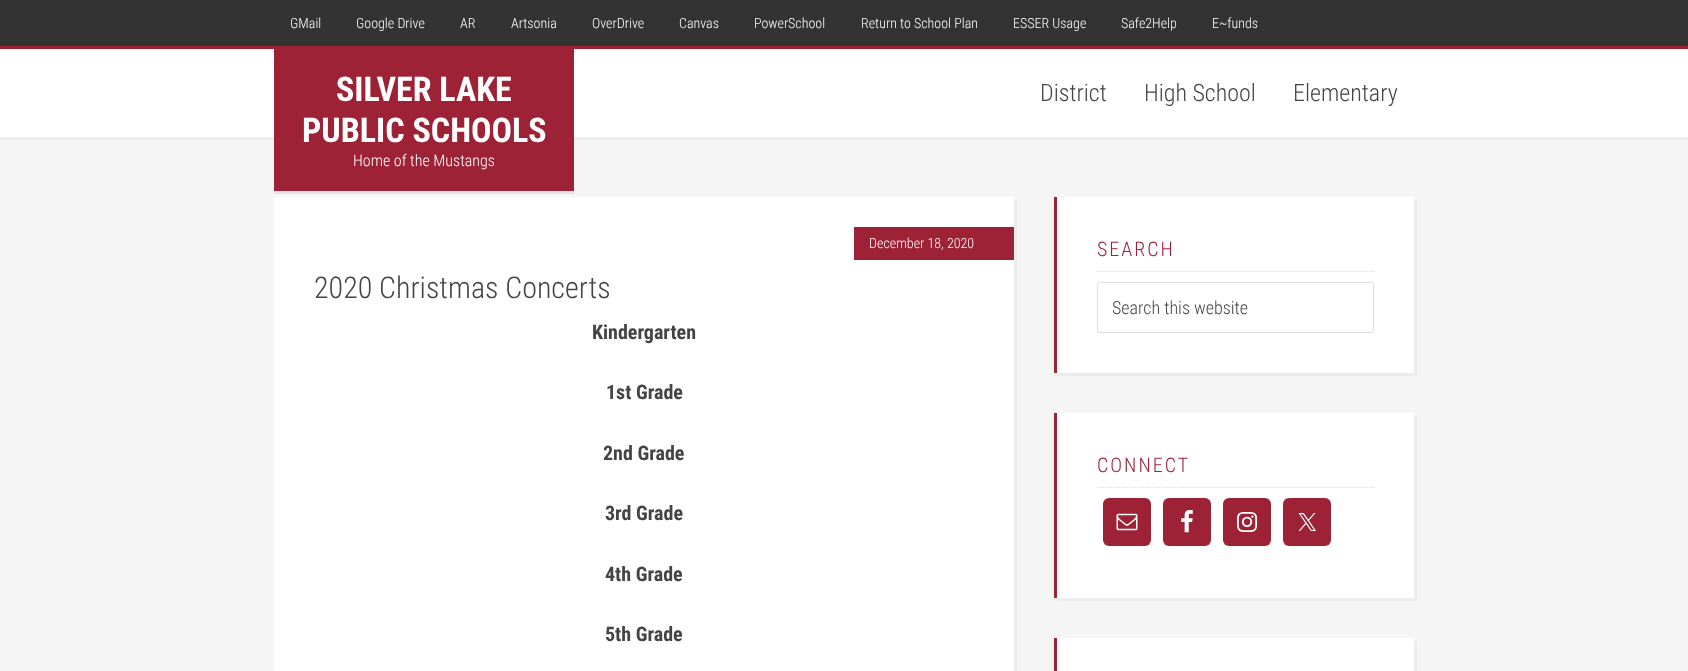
<!DOCTYPE html>
<meta charset="utf-8">
<style>body { margin: 0 } canvas { display: block }</style>
<canvas id="canvas" width="1688" height="671"></canvas>
<img id="img1" src="images/1.png" hidden>
<img id="img2" src="images/2.png" hidden>
<img id="img3" src="images/3.png" hidden>
<img id="img4" src="images/4.png" hidden>
<script>
window.onload = function () {
    const canvas = document.getElementById('canvas');
    const context = canvas.getContext('2d');
    context.miterLimit = 4;
    context.fontKerning = 'normal';

    context.fillStyle = 'rgb(245, 245, 245)';
    context.fillRect(0, 0, 1688, 671);
    context.fillStyle = 'rgb(51, 51, 51)';
    context.fillRect(0, 0, 1688, 46);
    context.fillStyle = 'rgb(236, 236, 236)';
    context.fillRect(0, 137, 1688, 3);
    context.fillStyle = 'rgb(255, 255, 255)';
    context.fillRect(0, 49, 1688, 88);
    context.fillStyle = 'rgb(157, 34, 53)';
    context.fillRect(0, 46, 1688, 3);
    context.fillStyle = 'rgb(228, 228, 228)';
    context.fillRect(274, 191, 300, 3);
    context.fillStyle = 'rgb(157, 34, 53)';
    context.fillRect(274, 49, 300, 142);
    context.fillStyle = 'rgb(236, 236, 236)';
    context.beginPath();
    context.moveTo(277, 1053);
    context.lineTo(277, 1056);
    context.lineTo(1017, 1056);
    context.lineTo(1017, 200);
    context.lineTo(1014, 200);
    context.lineTo(1014, 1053);
    context.closePath();
    context.fill();
    context.fillStyle = 'rgb(255, 255, 255)';
    context.fillRect(274, 197, 740, 474);
    context.fillStyle = 'rgb(157, 34, 53)';
    context.fillRect(854, 227, 160, 33);
    context.fillStyle = 'rgb(236, 236, 236)';
    context.beginPath();
    context.moveTo(1057, 373);
    context.lineTo(1057, 376);
    context.lineTo(1417, 376);
    context.lineTo(1417, 200);
    context.lineTo(1414, 200);
    context.lineTo(1414, 373);
    context.closePath();
    context.fill();
    context.fillStyle = 'rgb(255, 255, 255)';
    context.fillRect(1057, 197, 357, 176);
    context.fillStyle = 'rgb(157, 34, 53)';
    context.fillRect(1054, 197, 3, 176);
    context.beginPath();
    context.moveTo(1097, 271.5);
    context.lineTo(1374, 271.5);
    context.strokeStyle = 'rgb(221, 221, 221)';
    context.setLineDash([1, 1]);
    context.stroke();
    context.beginPath();
    context.roundRect(1097.5, 282.5, 276, 50, 2.5);
    context.setLineDash([]);
    context.stroke();
    context.fillStyle = 'rgb(236, 236, 236)';
    context.beginPath();
    context.moveTo(1057, 598);
    context.lineTo(1057, 601);
    context.lineTo(1417, 601);
    context.lineTo(1417, 416);
    context.lineTo(1414, 416);
    context.lineTo(1414, 598);
    context.closePath();
    context.fill();
    context.fillStyle = 'rgb(255, 255, 255)';
    context.fillRect(1057, 413, 357, 185);
    context.fillStyle = 'rgb(157, 34, 53)';
    context.fillRect(1054, 413, 3, 185);
    context.beginPath();
    context.moveTo(1097, 487.5);
    context.lineTo(1374, 487.5);
    context.setLineDash([1, 1]);
    context.stroke();
    context.beginPath();
    context.roundRect(1103, 498, 48, 48, 6);
    context.fill();
    context.drawImage(document.getElementById('img1'), 1116, 513, 22, 18);
    context.beginPath();
    context.roundRect(1163, 498, 48, 48, 6);
    context.fill();
    context.drawImage(document.getElementById('img2'), 1181, 510, 12, 23);
    context.beginPath();
    context.roundRect(1223, 498, 48, 48, 6);
    context.fill();
    context.drawImage(document.getElementById('img3'), 1237, 512, 21, 20);
    context.beginPath();
    context.roundRect(1283, 498, 48, 48, 6);
    context.fill();
    context.drawImage(document.getElementById('img4'), 1298, 513, 18, 18);
    context.fillStyle = 'rgb(236, 236, 236)';
    context.beginPath();
    context.moveTo(1057, 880);
    context.lineTo(1057, 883);
    context.lineTo(1417, 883);
    context.lineTo(1417, 641);
    context.lineTo(1414, 641);
    context.lineTo(1414, 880);
    context.closePath();
    context.fill();
    context.fillStyle = 'rgb(255, 255, 255)';
    context.fillRect(1057, 638, 357, 33);
    context.fillStyle = 'rgb(157, 34, 53)';
    context.fillRect(1054, 638, 3, 33);
    context.font = '300 14px Roboto Condensed';
    context.fillStyle = 'rgb(255, 255, 255)';
    context.fillText('GMail', 290, 28);
    context.fillText('Google Drive', 356, 28);
    context.fillText('AR', 460, 28);
    context.fillText('Artsonia', 511, 28);
    context.fillText('OverDrive', 592, 28);
    context.fillText('Canvas', 679, 28);
    context.fillText('PowerSchool', 754, 28);
    context.fillText('Return to School Plan', 861, 28);
    context.fillText('ESSER Usage', 1013, 28);
    context.fillText('Safe2Help', 1121, 28);
    context.fillText('E~funds', 1212, 28);
    context.font = 'bold 34px Roboto Condensed';
    context.fillText('SILVER LAKE', 336, 101);
    context.fillText('PUBLIC SCHOOLS', 302, 142);
    context.font = '300 16px Roboto Condensed';
    context.fillText('Home of the Mustangs', 353, 166);
    context.font = '300 24px Roboto Condensed';
    context.fillStyle = 'rgb(68, 68, 68)';
    context.fillText('District', 1040, 101);
    context.fillText('High School', 1144, 101);
    context.fillText('Elementary', 1293, 101);
    context.font = '300 14px Roboto Condensed';
    context.fillStyle = 'rgb(255, 255, 255)';
    context.fillText('December 18, 2020', 869, 248);
    context.font = '300 30px Roboto Condensed';
    context.fillStyle = 'rgb(68, 68, 68)';
    context.fillText('2020 Christmas Concerts', 314, 298);
    context.font = 'bold 20px Roboto Condensed';
    context.fillText('Kindergarten', 592, 339);
    context.fillText('1st Grade', 606, 399);
    context.fillText('2nd Grade', 603, 460);
    context.fillText('3rd Grade', 605, 520);
    context.fillText('4th Grade', 605, 581);
    context.fillText('5th Grade', 605, 641);
    context.letterSpacing = '2px';
    context.font = '300 20px Roboto Condensed';
    context.fillStyle = 'rgb(157, 34, 53)';
    context.fillText('SEARCH', 1097, 256);
    context.letterSpacing = '0px';
    context.font = '300 18px Roboto Condensed';
    context.fillStyle = 'rgb(68, 68, 68)';
    context.fillText('Search this website', 1112, 314);
    context.letterSpacing = '2px';
    context.font = '300 20px Roboto Condensed';
    context.fillStyle = 'rgb(157, 34, 53)';
    context.fillText('CONNECT', 1097, 472);
};
</script>
